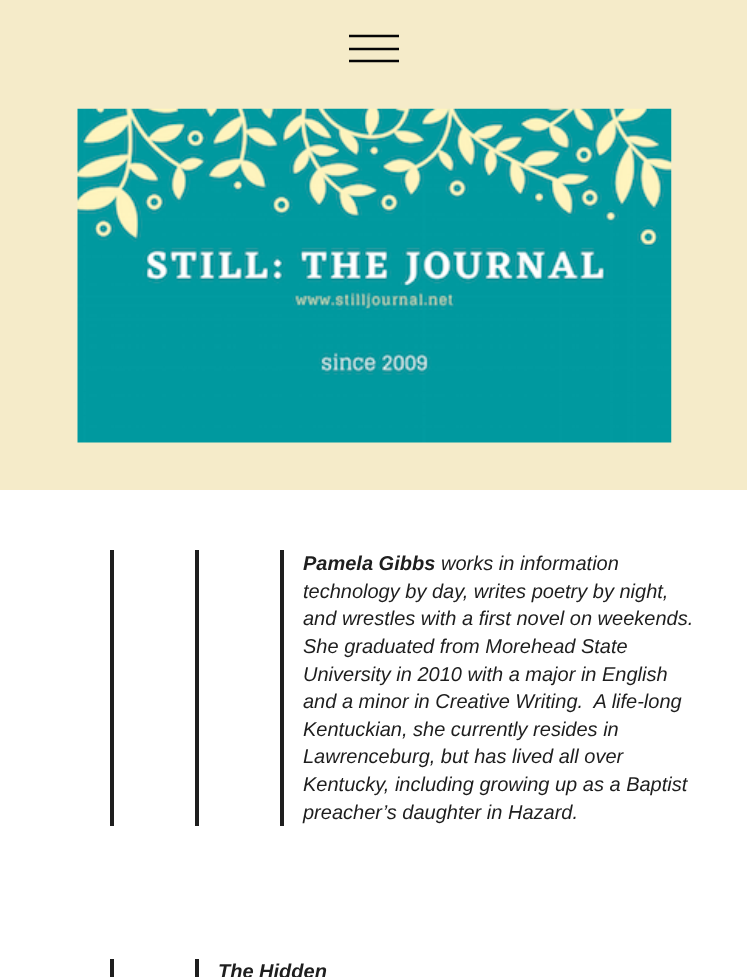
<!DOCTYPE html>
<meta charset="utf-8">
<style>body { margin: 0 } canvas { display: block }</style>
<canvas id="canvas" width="747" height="977"></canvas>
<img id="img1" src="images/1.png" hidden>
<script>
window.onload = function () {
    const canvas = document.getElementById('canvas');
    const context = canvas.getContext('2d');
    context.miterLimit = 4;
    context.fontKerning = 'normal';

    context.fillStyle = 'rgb(255, 255, 255)';
    context.fillRect(0, 0, 747, 977);
    context.fillStyle = 'rgb(245, 235, 201)';
    context.fillRect(0, 0, 747, 490);
    context.beginPath();
    context.moveTo(349, 36);
    context.lineTo(399, 36);
    context.moveTo(349, 49);
    context.lineTo(399, 49);
    context.moveTo(349, 61);
    context.lineTo(399, 61);
    context.strokeStyle = 'rgb(5, 5, 5)';
    context.lineWidth = 2.5;
    context.stroke();
    context.drawImage(document.getElementById('img1'), 77, 108, 595, 335);
    context.fillStyle = 'rgb(30, 30, 30)';
    context.fillRect(110, 550, 4, 276);
    context.fillRect(195, 550, 4, 276);
    context.fillRect(280, 550, 4, 276);
    context.fillRect(110, 959, 4, 18);
    context.fillRect(195, 959, 4, 18);
    context.font = 'italic bold 20px Liberation Sans';
    context.fillText('Pamela Gibbs', 303, 570);
    context.font = 'italic 20px Liberation Sans';
    context.fillText('works in information', 441, 570);
    context.fillText('technology by day, writes poetry by night,', 303, 598);
    context.fillText('and wrestles with a first novel on weekends.', 303, 625);
    context.fillText('She graduated from Morehead State', 303, 653);
    context.fillText('University in 2010 with a major in English', 303, 681);
    context.fillText('and a minor in Creative Writing.  A life-long', 303, 708);
    context.fillText('Kentuckian, she currently resides in', 303, 736);
    context.fillText('Lawrenceburg, but has lived all over', 303, 763);
    context.fillText('Kentucky, including growing up as a Baptist', 303, 791);
    context.fillText('preacher’s daughter in Hazard.', 303, 819);
    context.font = 'italic bold 20px Liberation Sans';
    context.fillText('The Hidden', 218, 978);
};
</script>
